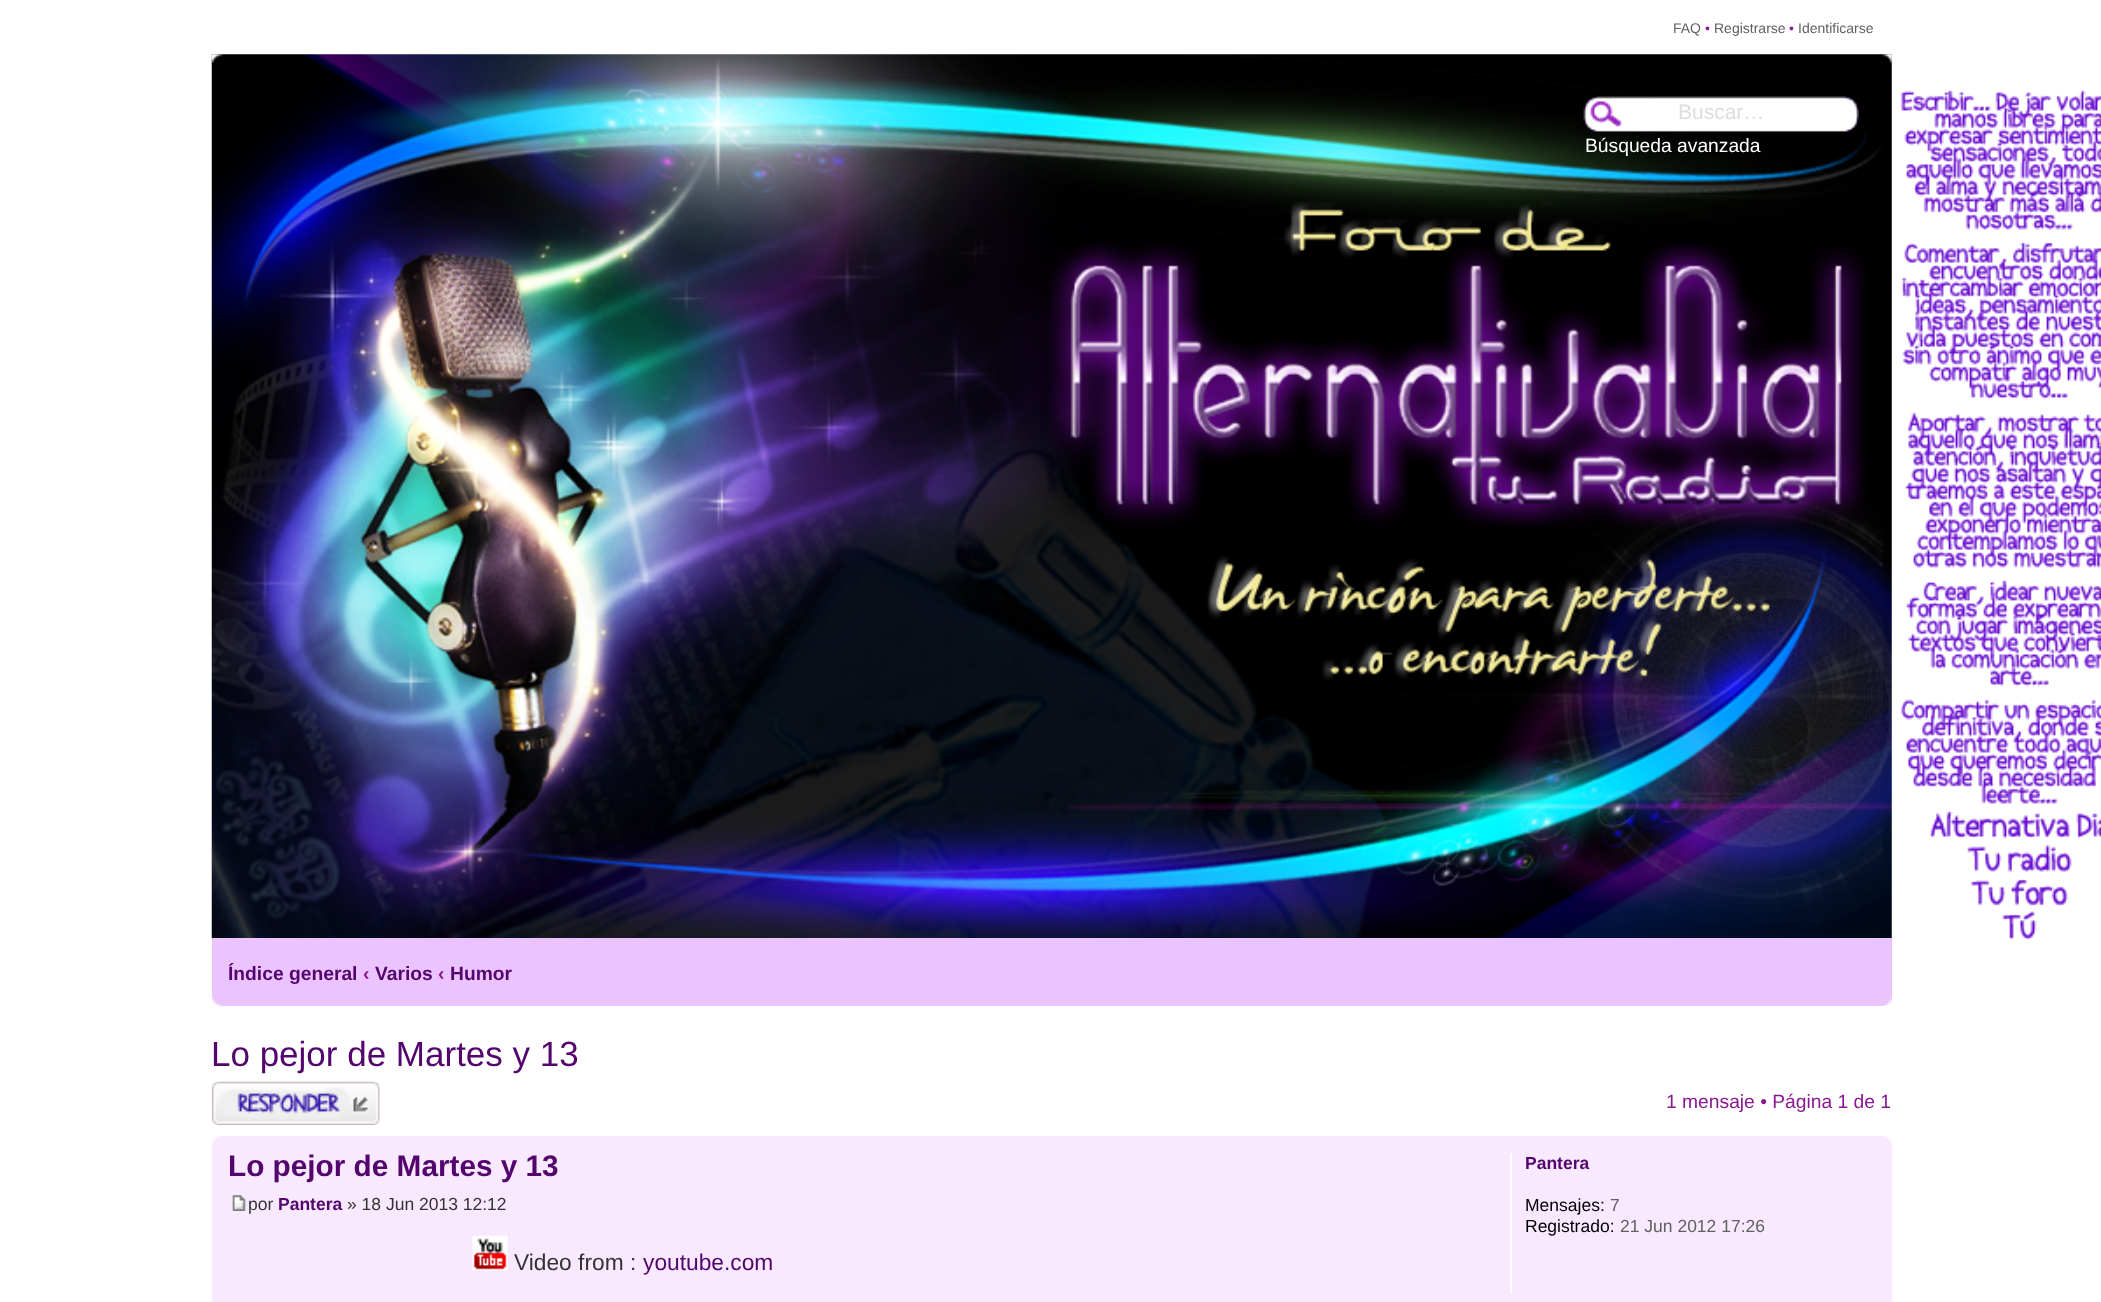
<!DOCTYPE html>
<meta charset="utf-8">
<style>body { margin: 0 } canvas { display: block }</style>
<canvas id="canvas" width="2101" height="1302"></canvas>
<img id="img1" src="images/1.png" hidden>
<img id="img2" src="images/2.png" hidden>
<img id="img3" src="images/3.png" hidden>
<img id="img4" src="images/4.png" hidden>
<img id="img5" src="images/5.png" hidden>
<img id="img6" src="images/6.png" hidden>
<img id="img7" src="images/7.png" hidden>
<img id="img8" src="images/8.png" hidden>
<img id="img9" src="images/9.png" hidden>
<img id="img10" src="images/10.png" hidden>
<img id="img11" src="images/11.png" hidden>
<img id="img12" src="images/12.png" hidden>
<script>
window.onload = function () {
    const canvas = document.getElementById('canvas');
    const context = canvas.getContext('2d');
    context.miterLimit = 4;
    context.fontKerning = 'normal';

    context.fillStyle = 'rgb(255, 255, 255)';
    context.fillRect(0, 0, 2101, 1302);
    context.drawImage(document.getElementById('img1'), 1901, 90, 200, 850);
    context.drawImage(document.getElementById('img2'), 211, 54, 1681, 884);
    context.drawImage(document.getElementById('img3'), 211, 54, 12, 9);
    context.drawImage(document.getElementById('img4'), 1882, 54, 10, 9);
    context.drawImage(document.getElementById('img5'), 1583, 96, 276, 36);
    context.fillStyle = 'rgb(235, 196, 255)';
    context.fillRect(212, 938, 1680, 68);
    context.drawImage(document.getElementById('img6'), 212, 997, 10, 9);
    context.drawImage(document.getElementById('img7'), 1883, 997, 9, 9);
    context.drawImage(document.getElementById('img8'), 211, 1081, 169, 45);
    context.fillStyle = 'rgb(248, 233, 255)';
    context.fillRect(212, 1136, 1680, 166);
    context.drawImage(document.getElementById('img9'), 212, 1136, 10, 8);
    context.drawImage(document.getElementById('img10'), 1883, 1136, 9, 8);
    context.drawImage(document.getElementById('img11'), 232, 1195, 14, 16);
    context.drawImage(document.getElementById('img12'), 472, 1235, 36, 36);
    context.fillStyle = 'rgb(255, 255, 255)';
    context.fillRect(1510, 1153, 2, 140);
    context.font = '14px Liberation Sans';
    context.fillStyle = 'rgb(97, 97, 97)';
    context.fillText('FAQ', 1673, 33);
    context.fillStyle = 'rgb(137, 25, 144)';
    context.fillText('•', 1705, 33);
    context.fillStyle = 'rgb(97, 97, 97)';
    context.fillText('Registrarse', 1714, 33);
    context.fillStyle = 'rgb(137, 25, 144)';
    context.fillText('•', 1789, 33);
    context.fillStyle = 'rgb(97, 97, 97)';
    context.fillText('Identificarse', 1798, 33);
    context.font = '21px Liberation Sans';
    context.fillStyle = 'rgb(221, 221, 221)';
    context.fillText('Buscar…', 1678, 119);
    context.font = '19.25px Liberation Sans';
    context.fillStyle = 'rgb(255, 255, 255)';
    context.fillText('Búsqueda avanzada', 1585, 152);
    context.font = 'bold 19.25px Liberation Sans';
    context.fillStyle = 'rgb(83, 4, 109)';
    context.fillText('Índice general', 228, 980);
    context.fillStyle = 'rgb(137, 25, 144)';
    context.fillText('‹', 363, 980);
    context.fillStyle = 'rgb(83, 4, 109)';
    context.fillText('Varios', 375, 980);
    context.fillStyle = 'rgb(137, 25, 144)';
    context.fillText('‹', 438, 980);
    context.fillStyle = 'rgb(83, 4, 109)';
    context.fillText('Humor', 450, 980);
    context.font = '35px Liberation Sans';
    context.fillText('Lo pejor de Martes y 13', 211, 1066);
    context.font = '19.25px Liberation Sans';
    context.fillStyle = 'rgb(137, 25, 144)';
    context.fillText('1 mensaje • Página 1 de 1', 1666, 1108);
    context.font = 'bold 29.75px Liberation Sans';
    context.fillStyle = 'rgb(83, 4, 109)';
    context.fillText('Lo pejor de Martes y 13', 228, 1176);
    context.font = '17.5px Liberation Sans';
    context.fillStyle = 'rgb(51, 51, 51)';
    context.fillText('por', 248, 1210);
    context.font = 'bold 17.5px Liberation Sans';
    context.fillStyle = 'rgb(83, 4, 109)';
    context.fillText('Pantera', 278, 1210);
    context.font = '17.5px Liberation Sans';
    context.fillStyle = 'rgb(51, 51, 51)';
    context.fillText('» 18 Jun 2013 12:12', 347, 1210);
    context.font = '22.75px Liberation Sans';
    context.fillText('Video from :', 514, 1270);
    context.fillStyle = 'rgb(83, 4, 109)';
    context.fillText('youtube.com', 643, 1270);
    context.font = 'bold 17.5px Liberation Sans';
    context.fillText('Pantera', 1525, 1169);
    context.font = '17.5px Liberation Sans';
    context.fillStyle = 'rgb(0, 0, 0)';
    context.fillText('Mensajes:', 1525, 1211);
    context.fillStyle = 'rgb(97, 97, 97)';
    context.fillText('7', 1610, 1211);
    context.fillStyle = 'rgb(0, 0, 0)';
    context.fillText('Registrado:', 1525, 1232);
    context.fillStyle = 'rgb(97, 97, 97)';
    context.fillText('21 Jun 2012 17:26', 1620, 1232);
};
</script>
